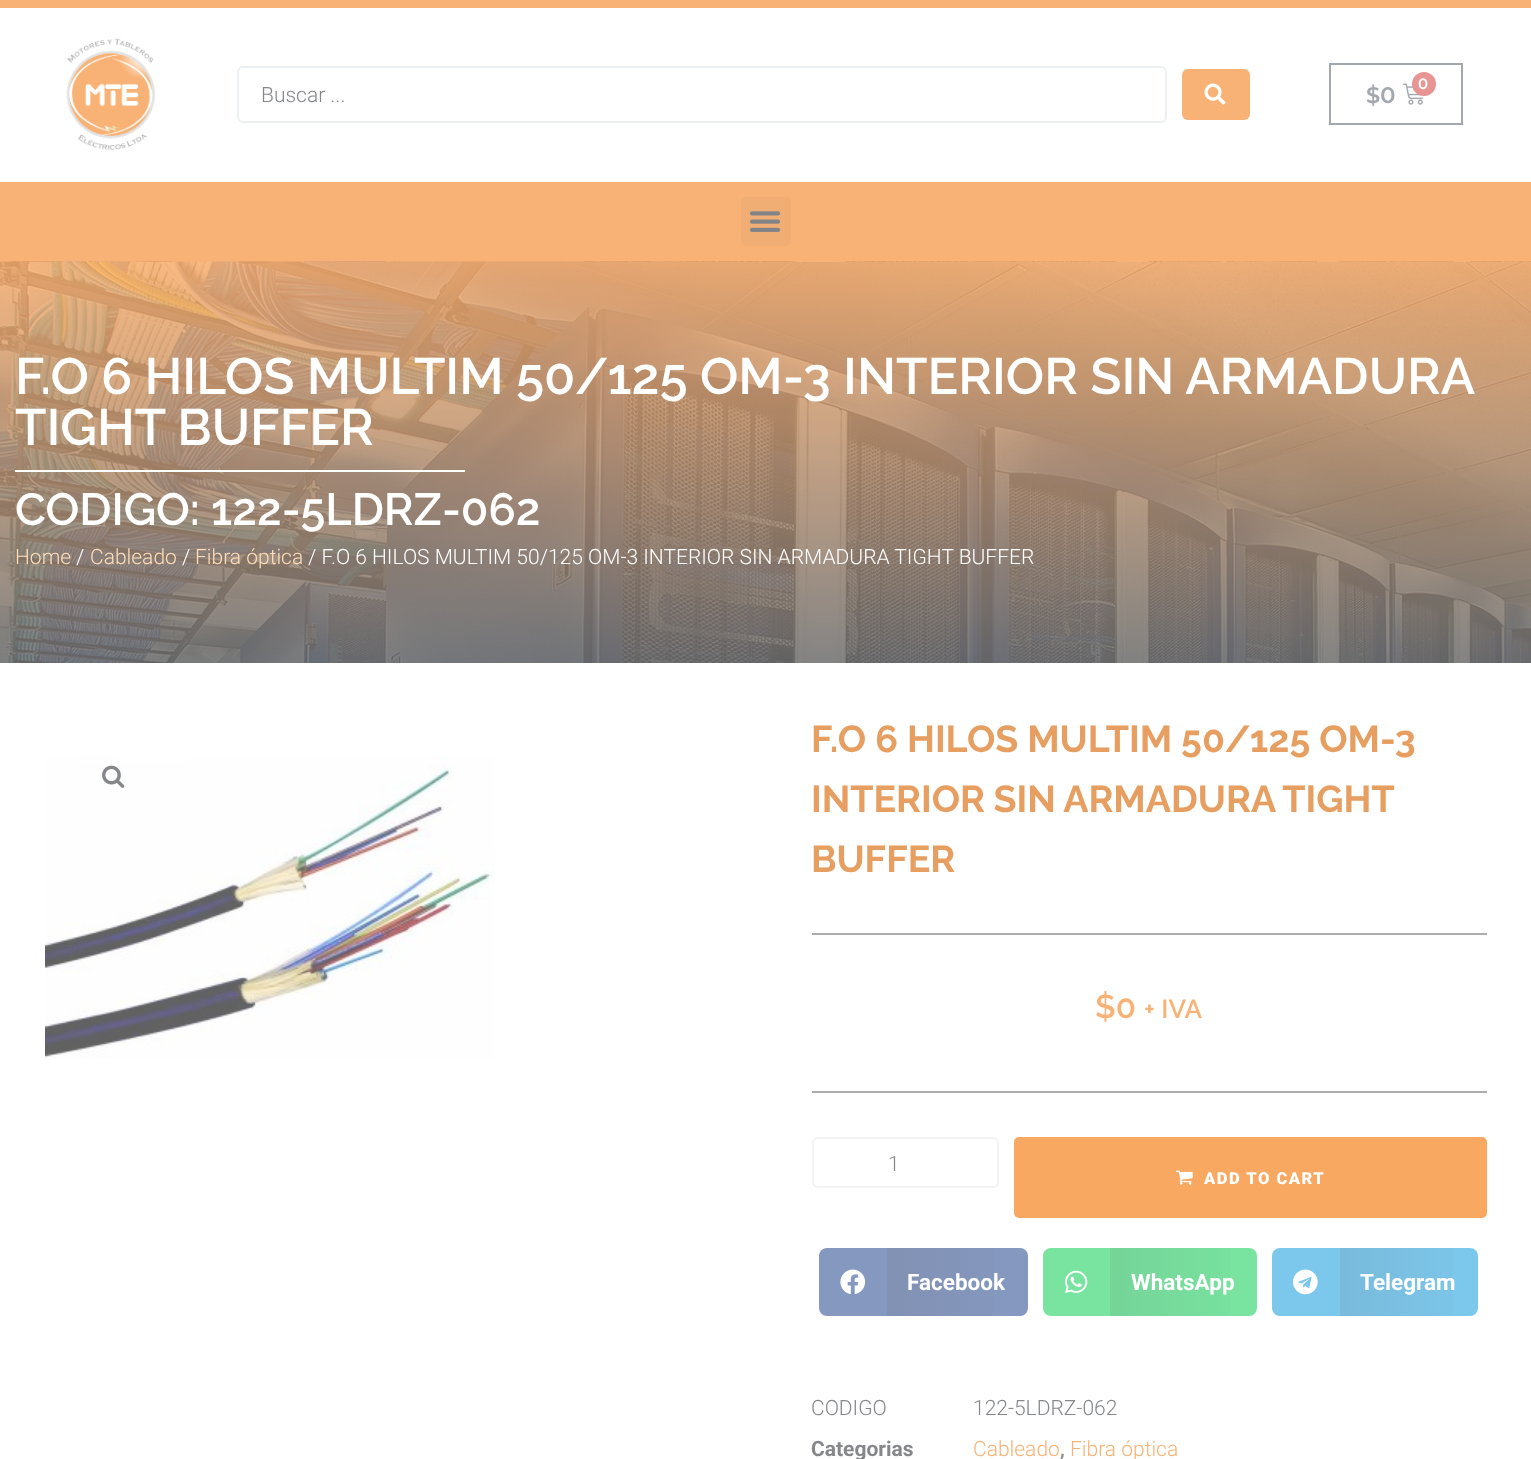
<!DOCTYPE html>
<meta charset="utf-8">
<style>body { margin: 0 } canvas { display: block }</style>
<canvas id="canvas" width="1531" height="1459"></canvas>
<img id="img1" src="images/1.png" hidden>
<img id="img2" src="images/2.png" hidden>
<img id="img3" src="images/3.png" hidden>
<img id="img4" src="images/4.png" hidden>
<img id="img5" src="images/5.png" hidden>
<img id="img6" src="images/6.png" hidden>
<img id="img7" src="images/7.png" hidden>
<img id="img8" src="images/8.png" hidden>
<img id="img9" src="images/9.png" hidden>
<img id="img10" src="images/10.png" hidden>
<img id="img11" src="images/11.png" hidden>
<script>
window.onload = function () {
    const canvas = document.getElementById('canvas');
    const context = canvas.getContext('2d');
    context.miterLimit = 4;
    context.fontKerning = 'normal';
    let gradient;

    context.fillStyle = 'rgb(255, 255, 255)';
    context.fillRect(0, 0, 1531, 1459);
    context.save();
    context.beginPath();
    context.moveTo(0, 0);
    context.lineTo(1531, 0);
    context.lineTo(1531, 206);
    context.lineTo(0, 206);
    context.closePath();
    context.moveTo(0, 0);
    context.lineTo(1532, 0);
    context.lineTo(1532, 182);
    context.lineTo(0, 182);
    context.closePath();
    context.clip('evenodd');
    context.fillStyle = 'rgba(97, 97, 97, 0.5)';
    context.filter = 'blur(7.5px)';
    context.beginPath();
    context.rect(0, 0, 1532, 182);
    context.fill();
    context.filter = 'none';
    context.restore();
    context.fillStyle = 'rgb(249, 178, 117)';
    context.fillRect(0, 0, 1531, 8);
    context.drawImage(document.getElementById('img1'), 66, 38, 90, 112);
    context.beginPath();
    context.roundRect(238, 67, 928, 55, 5);
    context.strokeStyle = 'rgb(236, 239, 243)';
    context.lineWidth = 2;
    context.stroke();
    context.beginPath();
    context.roundRect(1182, 69, 68, 51, 6);
    context.fill();
    context.drawImage(document.getElementById('img2'), 1204, 83, 22, 22);
    context.strokeStyle = 'rgb(162, 168, 174)';
    context.strokeRect(1330, 64, 132, 60);
    context.drawImage(document.getElementById('img3'), 1402, 83, 21, 22);
    context.fillStyle = 'rgb(231, 148, 146)';
    context.beginPath();
    context.arc(1424, 84, 12, 0, 2 * Math.PI);
    context.fill();
    context.fillStyle = 'rgb(249, 178, 117)';
    context.fillRect(0, 182, 1531, 79);
    context.fillStyle = 'rgb(241, 174, 116)';
    context.beginPath();
    context.roundRect(741, 197, 50, 49, 5);
    context.fill();
    context.drawImage(document.getElementById('img4'), 749, 211, 32, 21);
    context.drawImage(document.getElementById('img5'), 0, 261, 1531, 402);
    context.fillStyle = 'rgb(255, 255, 255)';
    context.fillRect(15, 470, 450, 2);
    context.drawImage(document.getElementById('img6'), 45, 756, 450, 303);
    context.drawImage(document.getElementById('img7'), 102, 765, 23, 23);
    context.fillStyle = 'rgb(173, 173, 173)';
    context.fillRect(812, 933, 675, 2);
    context.fillRect(812, 1091, 675, 2);
    context.beginPath();
    context.roundRect(813, 1138, 185, 49, 5);
    context.strokeStyle = 'rgb(243, 243, 244)';
    context.stroke();
    context.fillStyle = 'rgb(248, 168, 97)';
    context.beginPath();
    context.roundRect(1014, 1137, 473, 81, 5);
    context.fill();
    context.drawImage(document.getElementById('img8'), 1176, 1170, 17, 15);
    context.fillStyle = 'rgb(133, 152, 191)';
    context.beginPath();
    context.roundRect(819, 1248, 209, 68, 8);
    context.fill();
    context.drawImage(document.getElementById('img9'), 840, 1269, 26, 26);
    gradient = context.createLinearGradient(887, 1282, 1028, 1282);
    gradient.addColorStop(0, 'rgba(97, 97, 97, 0.12)');
    gradient.addColorStop(1, 'rgba(97, 97, 97, 0)');
    context.fillStyle = gradient;
    context.fillRect(887, 1248, 106, 68);
    context.fillStyle = 'rgb(120, 228, 160)';
    context.beginPath();
    context.roundRect(1043, 1248, 214, 68, 8);
    context.fill();
    context.drawImage(document.getElementById('img10'), 1065, 1270, 23, 23);
    gradient = context.createLinearGradient(1110, 1282, 1257, 1282);
    gradient.addColorStop(0, 'rgba(97, 97, 97, 0.12)');
    gradient.addColorStop(1, 'rgba(97, 97, 97, 0)');
    context.fillStyle = gradient;
    context.fillRect(1110, 1248, 121, 68);
    context.fillStyle = 'rgb(124, 199, 236)';
    context.beginPath();
    context.roundRect(1272, 1248, 206, 68, 8);
    context.fill();
    context.drawImage(document.getElementById('img11'), 1293, 1269, 25, 26);
    gradient = context.createLinearGradient(1340, 1282, 1478, 1282);
    gradient.addColorStop(0, 'rgba(97, 97, 97, 0.12)');
    gradient.addColorStop(1, 'rgba(97, 97, 97, 0)');
    context.fillStyle = gradient;
    context.fillRect(1340, 1248, 113, 68);
    context.font = '300 21px Roboto';
    context.fillStyle = 'rgb(133, 135, 138)';
    context.fillText('Buscar ...', 261, 102);
    context.font = '600 22.5px Montserrat';
    context.fillStyle = 'rgb(162, 168, 174)';
    context.fillText('$0', 1366, 103);
    context.font = '600 15px Montserrat';
    context.fillStyle = 'rgb(255, 255, 255)';
    context.fillText('0', 1418, 89);
    context.wordSpacing = '-0.25px';
    context.font = '600 51px Raleway';
    context.fillText('F.O 6 HILOS MULTIM 50/125 OM-3 INTERIOR SIN ARMADURA', 15, 394);
    context.wordSpacing = '0px';
    context.fillText('TIGHT BUFFER', 15, 445);
    context.font = '600 45px Raleway';
    context.fillText('CODIGO: 122-5LDRZ-062', 15, 525);
    context.font = '300 21px Roboto';
    context.fillStyle = 'rgb(255, 222, 185)';
    context.fillText('Home', 15, 564);
    context.fillStyle = 'rgb(255, 255, 255)';
    context.fillText('/', 76, 564);
    context.fillStyle = 'rgb(255, 222, 185)';
    context.fillText('Cableado', 90, 564);
    context.fillStyle = 'rgb(255, 255, 255)';
    context.fillText('/', 182, 564);
    context.fillStyle = 'rgb(255, 222, 185)';
    context.fillText('Fibra óptica', 195, 564);
    context.fillStyle = 'rgb(255, 255, 255)';
    context.fillText('/ F.O 6 HILOS MULTIM 50/125 OM-3 INTERIOR SIN ARMADURA TIGHT BUFFER', 308, 564);
    context.font = 'bold 37.5px Raleway';
    context.fillStyle = 'rgb(231, 158, 97)';
    context.fillText('F.O 6 HILOS MULTIM 50/125 OM-3', 811, 752);
    context.wordSpacing = '-0.5px';
    context.fillText('INTERIOR SIN ARMADURA TIGHT', 811, 812);
    context.wordSpacing = '0px';
    context.fillText('BUFFER', 811, 872);
    context.font = '600 33px Raleway';
    context.fillStyle = 'rgb(249, 178, 117)';
    context.fillText('$0', 1095, 1018);
    context.font = '600 26px Raleway';
    context.fillText('+ IVA', 1144, 1018);
    context.font = '300 21px Roboto';
    context.fillStyle = 'rgb(133, 135, 138)';
    context.fillText('1', 888, 1171);
    context.letterSpacing = '1.5px';
    context.font = '900 16.5px Roboto';
    context.fillStyle = 'rgb(255, 255, 255)';
    context.fillText('ADD TO CART', 1204, 1184);
    context.letterSpacing = '0px';
    context.font = 'bold 22.5px Roboto';
    context.fillText('Facebook', 907, 1290);
    context.fillText('WhatsApp', 1131, 1290);
    context.fillText('Telegram', 1360, 1290);
    context.font = '300 21px Roboto';
    context.fillStyle = 'rgb(133, 135, 138)';
    context.fillText('CODIGO', 811, 1415);
    context.fillText('122-5LDRZ-062', 973, 1415);
    context.font = 'bold 21px Roboto';
    context.fillText('Categorias', 811, 1456);
    context.font = '300 21px Roboto';
    context.fillStyle = 'rgb(249, 178, 117)';
    context.fillText('Cableado', 973, 1456);
    context.font = '500 21px Roboto';
    context.fillStyle = 'rgb(133, 135, 138)';
    context.fillText(',', 1060, 1456);
    context.font = '300 21px Roboto';
    context.fillStyle = 'rgb(249, 178, 117)';
    context.fillText('Fibra óptica', 1070, 1456);
};
</script>
